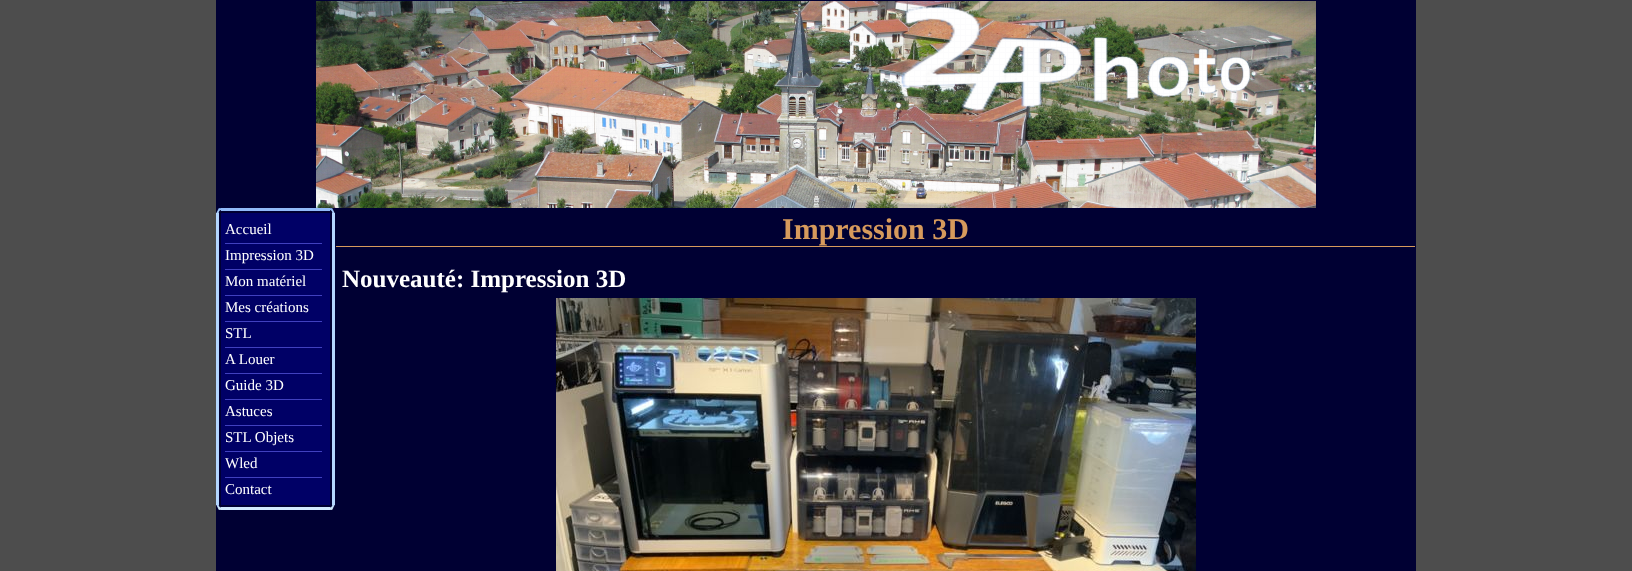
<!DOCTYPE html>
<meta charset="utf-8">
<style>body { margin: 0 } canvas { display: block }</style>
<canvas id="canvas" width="1632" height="571"></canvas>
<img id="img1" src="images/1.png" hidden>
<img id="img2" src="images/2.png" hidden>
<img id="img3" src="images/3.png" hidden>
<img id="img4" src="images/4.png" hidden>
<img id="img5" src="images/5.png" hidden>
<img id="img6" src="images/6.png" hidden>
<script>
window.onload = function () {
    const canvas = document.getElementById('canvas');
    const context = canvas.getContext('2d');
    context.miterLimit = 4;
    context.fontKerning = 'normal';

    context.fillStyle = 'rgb(77, 77, 77)';
    context.fillRect(0, 0, 1632, 571);
    context.fillStyle = 'rgb(0, 0, 51)';
    context.fillRect(216, 0, 1200, 571);
    context.drawImage(document.getElementById('img1'), 316, 1, 1000, 207);
    context.drawImage(document.getElementById('img2'), 216, 208, 5, 5);
    context.fillStyle = 'rgb(145, 186, 249)';
    context.fillRect(221, 208, 109, 3);
    context.drawImage(document.getElementById('img3'), 330, 208, 5, 5);
    context.fillStyle = 'rgb(180, 214, 255)';
    context.fillRect(216, 213, 3, 292);
    context.fillStyle = 'rgb(0, 0, 102)';
    context.fillRect(221, 213, 109, 292);
    context.fillStyle = 'rgb(64, 64, 191)';
    context.fillRect(225, 243, 97, 1);
    context.fillRect(225, 269, 97, 1);
    context.fillRect(225, 295, 97, 1);
    context.fillRect(225, 321, 97, 1);
    context.fillRect(225, 347, 97, 1);
    context.fillRect(225, 373, 97, 1);
    context.fillRect(225, 399, 97, 1);
    context.fillRect(225, 425, 97, 1);
    context.fillRect(225, 451, 97, 1);
    context.fillRect(225, 477, 97, 1);
    context.fillStyle = 'rgb(180, 214, 255)';
    context.fillRect(332, 213, 3, 292);
    context.drawImage(document.getElementById('img4'), 216, 505, 5, 5);
    context.fillStyle = 'rgb(210, 234, 255)';
    context.fillRect(221, 507, 109, 3);
    context.drawImage(document.getElementById('img5'), 330, 505, 5, 5);
    context.fillStyle = 'rgb(214, 154, 92)';
    context.fillRect(336, 246, 1079, 1);
    context.drawImage(document.getElementById('img6'), 556, 298, 640, 273);
    context.font = '15px Liberation Serif';
    context.fillStyle = 'rgb(255, 255, 255)';
    context.fillText('Accueil', 225, 234);
    context.fillText('Impression 3D', 225, 260);
    context.fillText('Mon matériel', 225, 286);
    context.fillText('Mes créations', 225, 312);
    context.fillText('STL', 225, 338);
    context.fillText('A Louer', 225, 364);
    context.fillText('Guide 3D', 225, 390);
    context.fillText('Astuces', 225, 416);
    context.fillText('STL Objets', 225, 442);
    context.fillText('Wled', 225, 468);
    context.fillText('Contact', 225, 494);
    context.font = 'bold 30px Liberation Serif';
    context.fillStyle = 'rgb(214, 154, 92)';
    context.fillText('Impression 3D', 782, 239);
    context.font = 'bold 25px Liberation Serif';
    context.fillStyle = 'rgb(255, 255, 255)';
    context.fillText('Nouveauté: Impression 3D', 342, 287);
};
</script>
